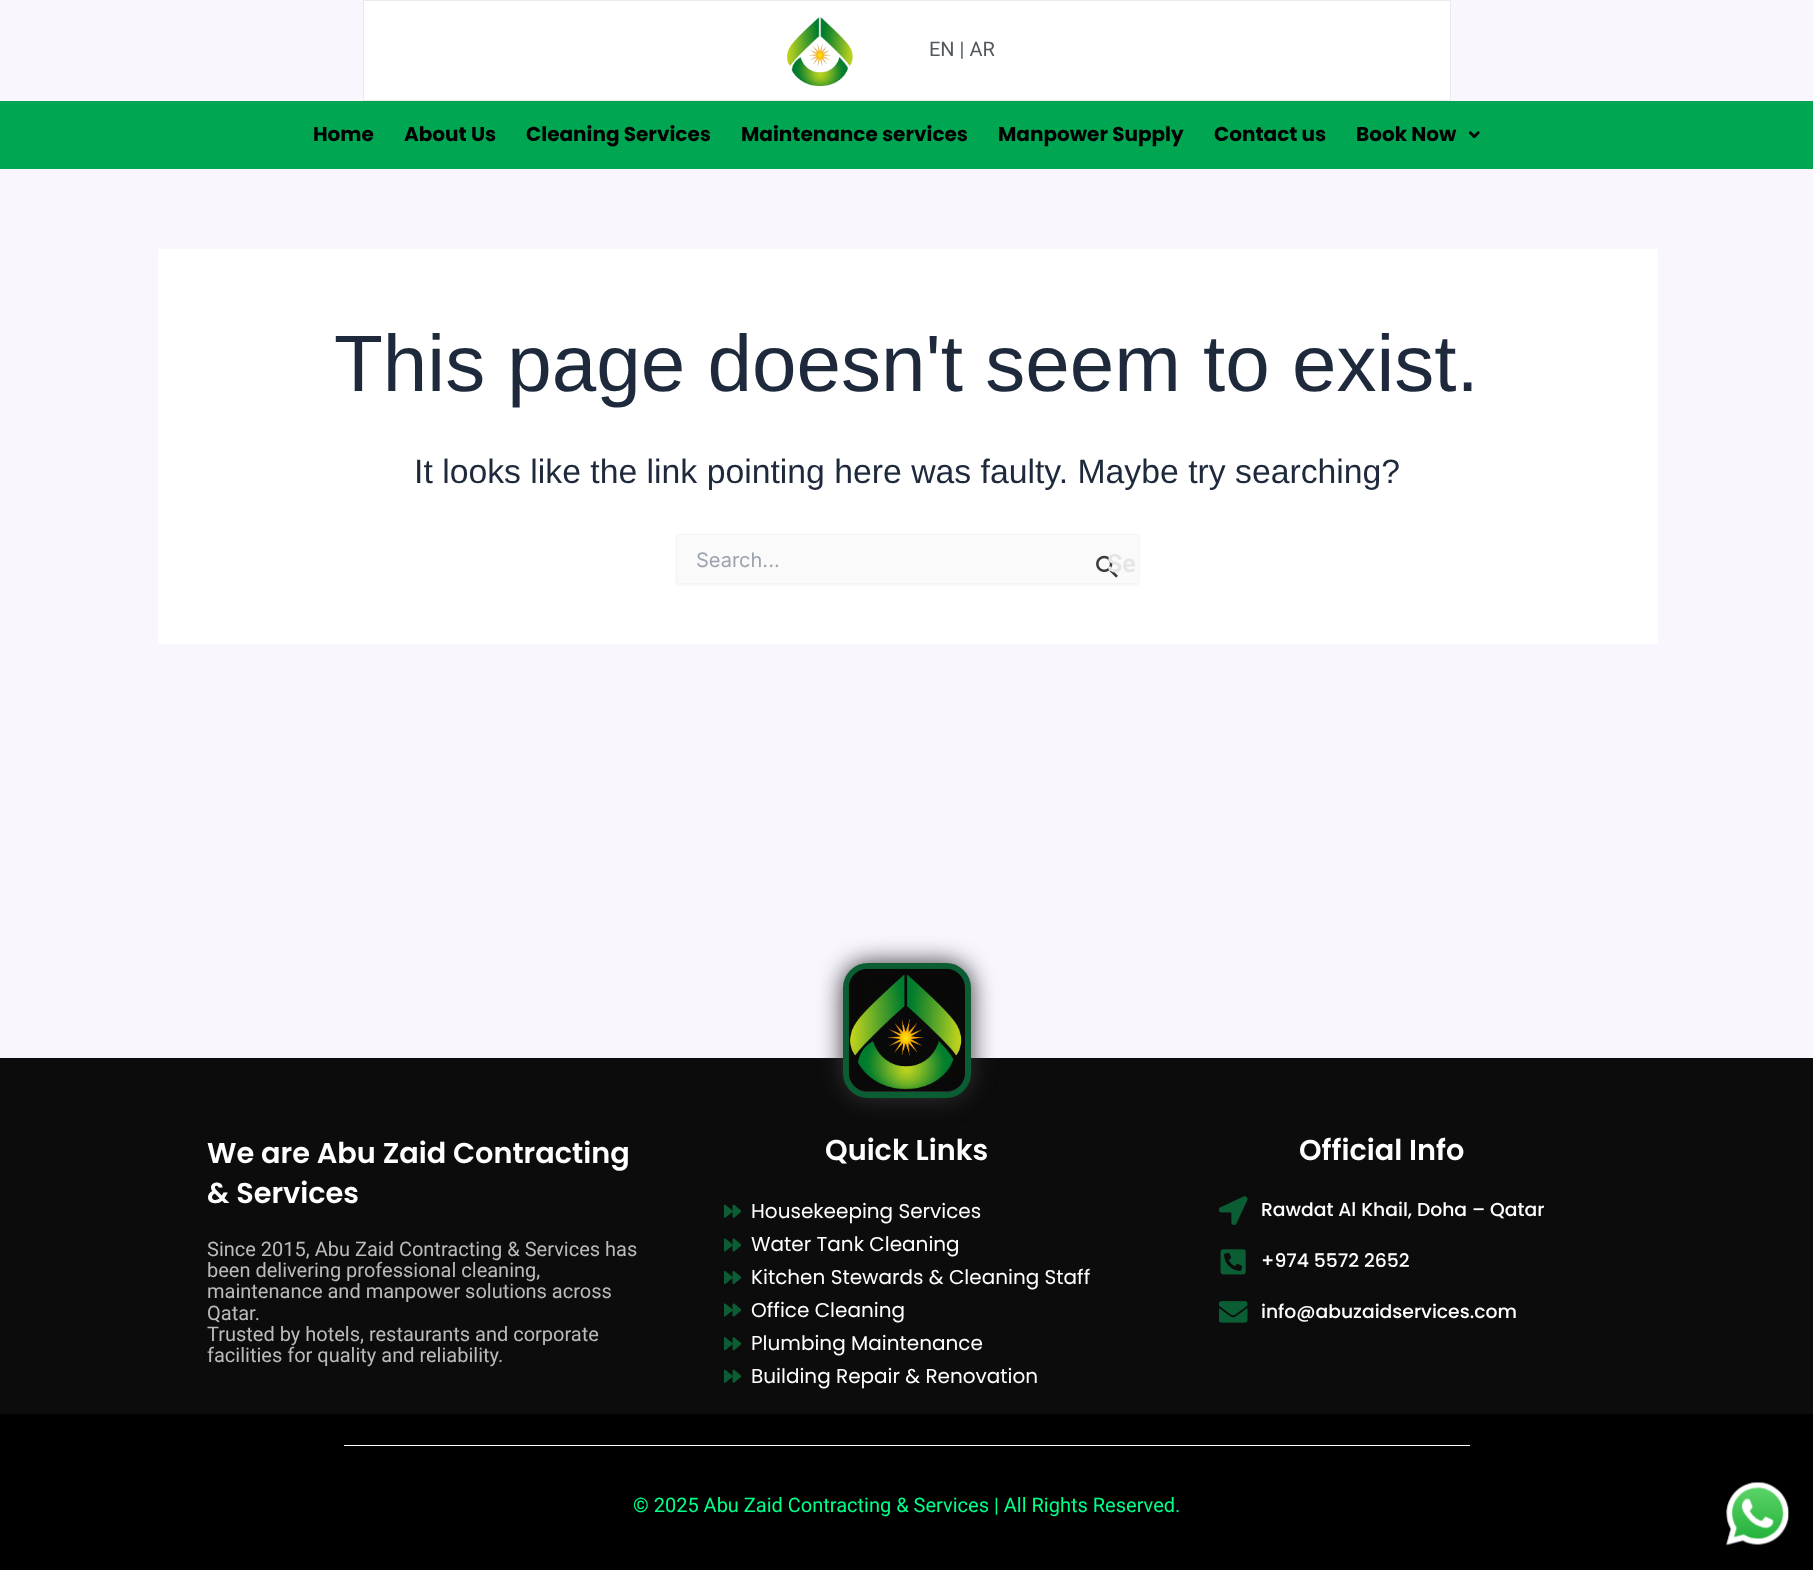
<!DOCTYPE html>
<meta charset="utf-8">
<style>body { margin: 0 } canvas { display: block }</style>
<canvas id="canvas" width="1813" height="1570"></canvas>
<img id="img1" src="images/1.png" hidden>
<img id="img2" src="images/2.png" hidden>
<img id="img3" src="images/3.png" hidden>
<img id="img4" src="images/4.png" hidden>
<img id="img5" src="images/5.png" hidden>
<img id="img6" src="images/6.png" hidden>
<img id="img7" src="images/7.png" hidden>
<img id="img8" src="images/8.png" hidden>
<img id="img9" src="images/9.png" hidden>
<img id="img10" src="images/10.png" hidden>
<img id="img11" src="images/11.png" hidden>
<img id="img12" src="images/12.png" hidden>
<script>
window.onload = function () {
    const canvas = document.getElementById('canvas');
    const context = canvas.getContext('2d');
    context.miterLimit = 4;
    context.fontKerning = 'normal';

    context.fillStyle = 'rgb(249, 246, 254)';
    context.fillRect(0, 0, 1813, 1570);
    context.fillStyle = 'rgb(255, 255, 255)';
    context.beginPath();
    context.rect(363.5, 0.5, 1087, 100);
    context.fill();
    context.strokeStyle = 'rgb(234, 234, 234)';
    context.stroke();
    context.drawImage(document.getElementById('img1'), 787, 17, 66, 70);
    context.fillStyle = 'rgb(0, 166, 81)';
    context.fillRect(0, 101, 1813, 68);
    context.drawImage(document.getElementById('img2'), 1468, 131, 12, 8);
    context.fillStyle = 'rgb(255, 255, 255)';
    context.fillRect(158, 249, 1500, 395);
    context.fillStyle = 'rgba(0, 0, 0, 0.05)';
    context.filter = 'blur(1px)';
    context.beginPath();
    context.roundRect(676, 535, 463, 50, 2.5);
    context.fill();
    context.filter = 'none';
    context.fillStyle = 'rgb(250, 250, 250)';
    context.beginPath();
    context.roundRect(676.5, 534.5, 462, 49, 2);
    context.fill();
    context.strokeStyle = 'rgb(242, 245, 247)';
    context.stroke();
    context.drawImage(document.getElementById('img3'), 1096, 555, 22, 23);
    context.fillStyle = 'rgb(12, 12, 12)';
    context.fillRect(0, 1058, 1813, 356);
    context.fillStyle = 'rgb(51, 51, 51)';
    context.filter = 'blur(12.5px)';
    context.beginPath();
    context.roundRect(843, 963, 128, 135, 25);
    context.fill();
    context.filter = 'none';
    context.beginPath();
    context.roundRect(846, 966, 122, 129, 22);
    context.strokeStyle = 'rgb(11, 94, 52)';
    context.lineWidth = 6;
    context.stroke();
    context.drawImage(document.getElementById('img4'), 848, 968, 117, 123);
    context.drawImage(document.getElementById('img5'), 724, 1204, 17, 14);
    context.drawImage(document.getElementById('img6'), 724, 1238, 17, 14);
    context.drawImage(document.getElementById('img7'), 724, 1271, 17, 13);
    context.drawImage(document.getElementById('img6'), 724, 1303, 17, 14);
    context.drawImage(document.getElementById('img8'), 724, 1337, 17, 14);
    context.drawImage(document.getElementById('img5'), 724, 1369, 17, 14);
    context.drawImage(document.getElementById('img9'), 1219, 1196, 29, 29);
    context.drawImage(document.getElementById('img10'), 1220, 1249, 26, 26);
    context.drawImage(document.getElementById('img11'), 1219, 1301, 29, 22);
    context.fillStyle = 'rgb(0, 0, 0)';
    context.fillRect(0, 1414, 1813, 156);
    context.fillStyle = 'rgb(255, 255, 255)';
    context.fillRect(344, 1445, 1126, 1);
    context.drawImage(document.getElementById('img12'), 1726, 1482, 64, 64);
    context.font = '20px Roboto';
    context.fillStyle = 'rgb(84, 89, 95)';
    context.fillText('EN | AR', 929, 56);
    context.font = 'bold 20px Poppins';
    context.fillStyle = 'rgb(0, 0, 0)';
    context.fillText('Home', 313, 141);
    context.fillText('About Us', 404, 141);
    context.fillText('Cleaning Services', 526, 141);
    context.fillText('Maintenance services', 741, 141);
    context.fillText('Manpower Supply', 998, 141);
    context.fillText('Contact us', 1214, 141);
    context.fillText('Book Now', 1356, 141);
    context.font = '80px Liberation Sans';
    context.fillStyle = 'rgb(30, 41, 59)';
    context.fillText('This page doesn\'t seem to exist.', 334, 391);
    context.font = '33.75px Liberation Sans';
    context.fillText('It looks like the link pointing here was faulty. Maybe try searching?', 414, 483);
    context.font = '20px Inter';
    context.fillStyle = 'rgb(156, 163, 175)';
    context.fillText('Search...', 696, 567);
    context.font = '600 25px Roboto';
    context.fillStyle = 'rgb(229, 229, 229)';
    context.fillText('Se', 1107, 572);
    context.font = '600 28.75px Poppins';
    context.fillStyle = 'rgb(255, 255, 255)';
    context.fillText('We are Abu Zaid Contracting', 207, 1163);
    context.fillText('& Services', 207, 1203);
    context.font = '20px Roboto';
    context.fillStyle = 'rgb(187, 187, 187)';
    context.fillText('Since 2015, Abu Zaid Contracting & Services has', 207, 1256);
    context.fillText('been delivering professional cleaning,', 207, 1277);
    context.fillText('maintenance and manpower solutions across', 207, 1298);
    context.fillText('Qatar.', 207, 1320);
    context.fillText('Trusted by hotels, restaurants and corporate', 207, 1341);
    context.fillText('facilities for quality and reliability.', 207, 1362);
    context.font = '600 28.75px Poppins';
    context.fillStyle = 'rgb(255, 255, 255)';
    context.fillText('Quick Links', 825, 1160);
    context.font = '20px Poppins';
    context.fillText('Housekeeping Services', 751, 1218);
    context.fillText('Water Tank Cleaning', 751, 1251);
    context.fillText('Kitchen Stewards & Cleaning Staff', 751, 1284);
    context.fillText('Office Cleaning', 751, 1317);
    context.fillText('Plumbing Maintenance', 751, 1350);
    context.fillText('Building Repair & Renovation', 751, 1383);
    context.font = '600 28.75px Poppins';
    context.fillText('Official Info', 1299, 1160);
    context.font = '500 18.75px Poppins';
    context.fillText('Rawdat Al Khail, Doha – Qatar', 1261, 1216);
    context.fillText('+974 5572 2652', 1261, 1267);
    context.fillText('info@abuzaidservices.com', 1261, 1318);
    context.font = '20px Roboto';
    context.fillStyle = 'rgb(0, 255, 136)';
    context.fillText('© 2025 Abu Zaid Contracting & Services | All Rights Reserved.', 633, 1512);
};
</script>
